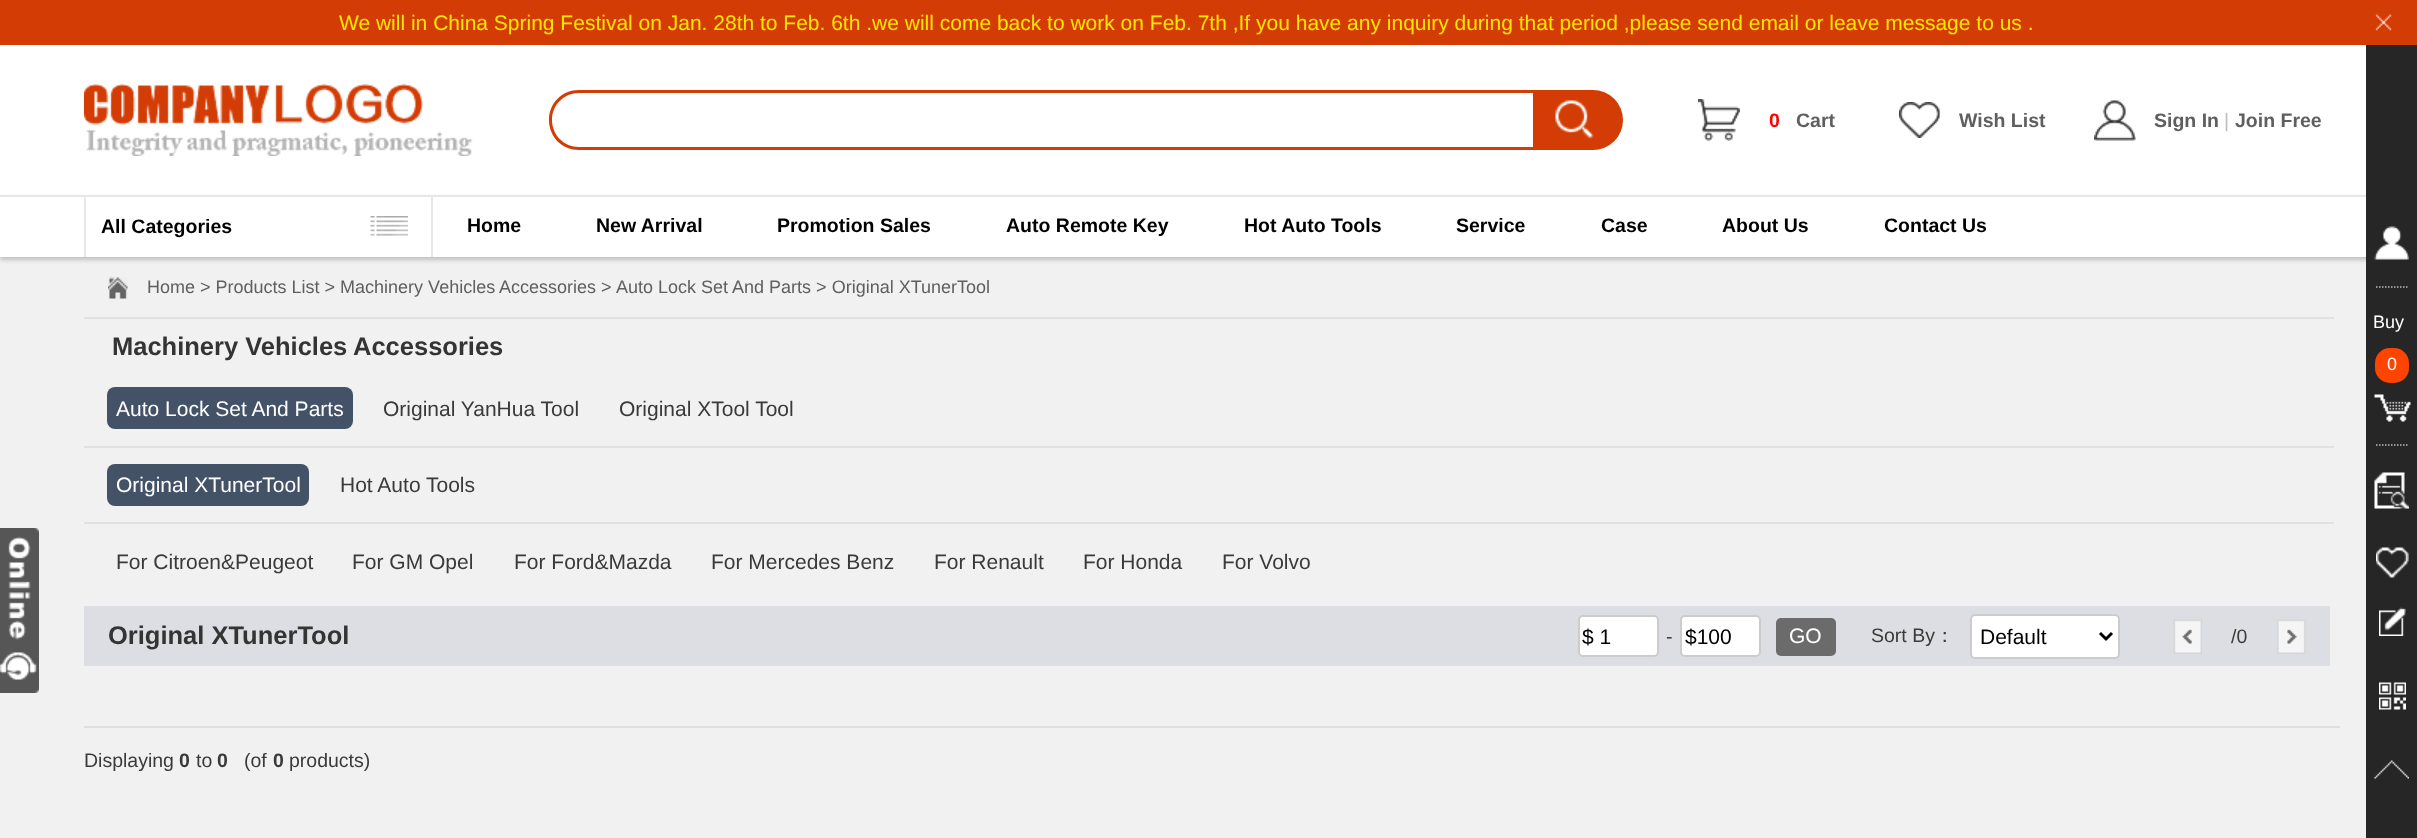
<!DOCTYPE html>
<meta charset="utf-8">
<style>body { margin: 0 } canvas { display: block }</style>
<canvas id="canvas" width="2417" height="838"></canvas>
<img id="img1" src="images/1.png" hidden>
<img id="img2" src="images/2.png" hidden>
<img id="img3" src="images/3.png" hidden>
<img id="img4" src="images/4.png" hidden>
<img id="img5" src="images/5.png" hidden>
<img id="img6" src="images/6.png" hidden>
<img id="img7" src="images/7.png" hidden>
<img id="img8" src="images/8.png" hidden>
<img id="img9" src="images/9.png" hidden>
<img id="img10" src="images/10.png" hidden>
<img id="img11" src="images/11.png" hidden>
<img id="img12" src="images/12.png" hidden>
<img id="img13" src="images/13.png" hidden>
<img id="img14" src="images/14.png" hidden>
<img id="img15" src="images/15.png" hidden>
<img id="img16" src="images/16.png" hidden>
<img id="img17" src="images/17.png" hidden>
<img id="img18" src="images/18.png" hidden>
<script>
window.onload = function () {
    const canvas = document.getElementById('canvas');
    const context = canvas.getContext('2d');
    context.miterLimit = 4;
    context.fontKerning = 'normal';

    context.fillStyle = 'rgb(241, 241, 241)';
    context.fillRect(0, 0, 2417, 838);
    context.fillStyle = 'rgb(211, 61, 5)';
    context.fillRect(0, 0, 2417, 45);
    context.drawImage(document.getElementById('img1'), 2375, 13, 17, 18);
    context.fillStyle = 'rgb(255, 255, 255)';
    context.fillRect(0, 45, 2366, 150);
    context.drawImage(document.getElementById('img2'), 84, 84, 389, 72);
    context.fillStyle = 'rgb(211, 61, 5)';
    context.beginPath();
    context.moveTo(579, 90);
    context.lineTo(1551, 90);
    context.lineTo(1551, 150);
    context.lineTo(579, 150);
    context.bezierCurveTo(562, 150, 549, 137, 549, 120);
    context.bezierCurveTo(549, 103, 562, 90, 579, 90);
    context.closePath();
    context.moveTo(579, 93);
    context.lineTo(1551, 93);
    context.lineTo(1551, 147);
    context.lineTo(579, 147);
    context.bezierCurveTo(564, 147, 552, 135, 552, 120);
    context.bezierCurveTo(552, 105, 564, 93, 579, 93);
    context.closePath();
    context.fill('evenodd');
    context.beginPath();
    context.roundRect(1533, 90, 90, 60, [0, 30, 30, 0]);
    context.fill();
    context.drawImage(document.getElementById('img3'), 1555, 100, 39, 39);
    context.drawImage(document.getElementById('img4'), 1698, 99, 42, 42);
    context.drawImage(document.getElementById('img5'), 1899, 102, 42, 36);
    context.drawImage(document.getElementById('img6'), 2094, 100, 42, 41);
    context.fillStyle = 'rgba(0, 0, 0, 0.2)';
    context.filter = 'blur(2px)';
    context.beginPath();
    context.rect(0, 198, 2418, 62);
    context.fill();
    context.filter = 'none';
    context.fillStyle = 'rgb(255, 255, 255)';
    context.fillRect(0, 197, 2366, 60);
    context.fillStyle = 'rgb(230, 231, 235)';
    context.fillRect(0, 195, 2366, 2);
    context.fillRect(431, 197, 2, 60);
    context.fillRect(84, 197, 2, 60);
    context.drawImage(document.getElementById('img7'), 370, 216, 38, 20);
    context.drawImage(document.getElementById('img8'), 108, 277, 20, 22);
    context.fillStyle = 'rgb(225, 225, 225)';
    context.fillRect(84, 317, 2250, 2);
    context.fillStyle = 'rgb(68, 82, 104)';
    context.beginPath();
    context.roundRect(107, 387, 246, 42, 8);
    context.fill();
    context.fillStyle = 'rgb(225, 225, 225)';
    context.fillRect(84, 446, 2250, 2);
    context.fillStyle = 'rgb(68, 82, 104)';
    context.beginPath();
    context.roundRect(107, 464, 202, 42, 8);
    context.fill();
    context.fillStyle = 'rgb(225, 225, 225)';
    context.fillRect(84, 522, 2250, 2);
    context.fillStyle = 'rgb(220, 222, 227)';
    context.fillRect(84, 606, 2246, 60);
    context.fillStyle = 'rgb(255, 255, 255)';
    context.beginPath();
    context.roundRect(1579, 616, 79, 40, 4);
    context.fill();
    context.strokeStyle = 'rgb(204, 204, 204)';
    context.lineWidth = 2;
    context.stroke();
    context.beginPath();
    context.roundRect(1681, 616, 79, 40, 4);
    context.fill();
    context.stroke();
    context.fillStyle = 'rgb(107, 107, 107)';
    context.beginPath();
    context.roundRect(1776, 618, 60, 38, 5);
    context.fill();
    context.fillStyle = 'rgb(255, 255, 255)';
    context.beginPath();
    context.roundRect(1971, 615, 148, 43, 4);
    context.fill();
    context.stroke();
    context.beginPath();
    context.moveTo(2100, 633);
    context.lineTo(2106, 639);
    context.lineTo(2112, 633);
    context.strokeStyle = 'rgb(0, 0, 0)';
    context.lineWidth = 3;
    context.stroke();
    context.drawImage(document.getElementById('img9'), 2173, 619, 29, 35);
    context.drawImage(document.getElementById('img10'), 2277, 619, 29, 35);
    context.fillStyle = 'rgb(222, 222, 222)';
    context.fillRect(84, 726, 2256, 2);
    context.fillStyle = 'rgb(38, 38, 38)';
    context.fillRect(2366, 45, 51, 793);
    context.drawImage(document.getElementById('img11'), 2374, 226, 35, 34);
    context.beginPath();
    context.moveTo(2376, 287);
    context.lineTo(2407.5, 287);
    context.strokeStyle = 'rgb(187, 187, 187)';
    context.lineWidth = 1.5;
    context.setLineDash([1.5, 1.5]);
    context.stroke();
    context.fillStyle = 'rgb(255, 68, 0)';
    context.beginPath();
    context.roundRect(2375, 348, 34, 35, 15);
    context.fill();
    context.drawImage(document.getElementById('img12'), 2374, 394, 37, 28);
    context.beginPath();
    context.moveTo(2376, 445);
    context.lineTo(2407.5, 445);
    context.stroke();
    context.drawImage(document.getElementById('img13'), 2374, 472, 35, 37);
    context.drawImage(document.getElementById('img14'), 2376, 547, 33, 31);
    context.drawImage(document.getElementById('img15'), 2379, 607, 27, 29);
    context.drawImage(document.getElementById('img16'), 2379, 682, 27, 28);
    context.drawImage(document.getElementById('img17'), 2374, 760, 35, 19);
    context.drawImage(document.getElementById('img18'), 0, 528, 39, 165);
    context.font = '21px Liberation Sans';
    context.fillStyle = 'rgb(255, 229, 0)';
    context.fillText('We will in China Spring Festival on Jan. 28th to Feb. 6th .we will come back to work on Feb. 7th ,If you have any inquiry during that period ,please send email or leave message to us .', 339, 30);
    context.font = 'bold 19.5px Liberation Sans';
    context.fillStyle = 'rgb(255, 0, 0)';
    context.fillText('0', 1769, 127);
    context.fillStyle = 'rgb(95, 95, 95)';
    context.fillText('Cart', 1796, 127);
    context.fillText('Wish List', 1959, 127);
    context.fillText('Sign In', 2154, 127);
    context.font = '19.5px Liberation Sans';
    context.fillStyle = 'rgb(188, 188, 188)';
    context.fillText('|', 2224, 127);
    context.font = 'bold 19.5px Liberation Sans';
    context.fillStyle = 'rgb(95, 95, 95)';
    context.fillText('Join Free', 2235, 127);
    context.fillStyle = 'rgb(0, 0, 0)';
    context.fillText('All Categories', 101, 233);
    context.fillText('Home', 467, 232);
    context.fillText('New Arrival', 596, 232);
    context.fillText('Promotion Sales', 777, 232);
    context.fillText('Auto Remote Key', 1006, 232);
    context.fillText('Hot Auto Tools', 1244, 232);
    context.fillText('Service', 1456, 232);
    context.fillText('Case', 1601, 232);
    context.fillText('About Us', 1722, 232);
    context.fillText('Contact Us', 1884, 232);
    context.font = '18px Liberation Sans';
    context.fillStyle = 'rgb(95, 95, 95)';
    context.fillText('Home > Products List > Machinery Vehicles', 147, 293);
    context.fillText('Accessories', 499, 293);
    context.fillText('>', 601, 293);
    context.fillText('Auto Lock Set And Parts > Original XTunerTool', 616, 293);
    context.font = 'bold 25.5px Liberation Sans';
    context.fillStyle = 'rgb(52, 52, 52)';
    context.fillText('Machinery Vehicles', 112, 355);
    context.fillText('Accessories', 353, 355);
    context.font = '21px Liberation Sans';
    context.fillStyle = 'rgb(255, 255, 255)';
    context.fillText('Auto Lock Set And Parts', 116, 416);
    context.fillStyle = 'rgb(58, 58, 58)';
    context.fillText('Original YanHua Tool', 383, 416);
    context.fillText('Original XTool Tool', 619, 416);
    context.fillStyle = 'rgb(255, 255, 255)';
    context.fillText('Original XTunerTool', 116, 492);
    context.fillStyle = 'rgb(58, 58, 58)';
    context.fillText('Hot Auto Tools', 340, 492);
    context.fillText('For Citroen&Peugeot', 116, 569);
    context.fillText('For GM Opel', 352, 569);
    context.fillText('For Ford&Mazda', 514, 569);
    context.fillText('For Mercedes Benz', 711, 569);
    context.fillText('For Renault', 934, 569);
    context.fillText('For Honda', 1083, 569);
    context.fillText('For Volvo', 1222, 569);
    context.font = 'bold 25.5px Liberation Sans';
    context.fillStyle = 'rgb(52, 52, 52)';
    context.fillText('Original XTunerTool', 108, 644);
    context.font = '21px Liberation Sans';
    context.fillStyle = 'rgb(0, 0, 0)';
    context.fillText('$ 1', 1582, 644);
    context.font = '19.5px Liberation Sans';
    context.fillStyle = 'rgb(58, 58, 58)';
    context.fillText('-', 1666, 643);
    context.font = '21px Liberation Sans';
    context.fillStyle = 'rgb(0, 0, 0)';
    context.fillText('$100', 1685, 644);
    context.fillStyle = 'rgb(255, 255, 255)';
    context.fillText('GO', 1789, 643);
    context.font = '19.5px Liberation Sans';
    context.fillStyle = 'rgb(58, 58, 58)';
    context.fillText('Sort By', 1871, 642);
    context.font = '500 19.5px WenQuanYi Zen Hei';
    context.fillText('：', 1935, 642);
    context.font = '21px Liberation Sans';
    context.fillStyle = 'rgb(0, 0, 0)';
    context.fillText('Default', 1980, 644);
    context.font = '19.5px Liberation Sans';
    context.fillStyle = 'rgb(58, 58, 58)';
    context.fillText('/0', 2231, 643);
    context.fillText('Displaying', 84, 767);
    context.font = 'bold 19.5px Liberation Sans';
    context.fillText('0', 179, 767);
    context.font = '19.5px Liberation Sans';
    context.fillText('to', 196, 767);
    context.font = 'bold 19.5px Liberation Sans';
    context.fillText('0', 217, 767);
    context.font = '19.5px Liberation Sans';
    context.fillText('(of', 244, 767);
    context.font = 'bold 19.5px Liberation Sans';
    context.fillText('0', 273, 767);
    context.font = '19.5px Liberation Sans';
    context.fillText('products)', 289, 767);
    context.font = '18px Liberation Sans';
    context.fillStyle = 'rgb(255, 255, 255)';
    context.fillText('Buy', 2373, 328);
    context.fillText('0', 2387, 370);
};
</script>
